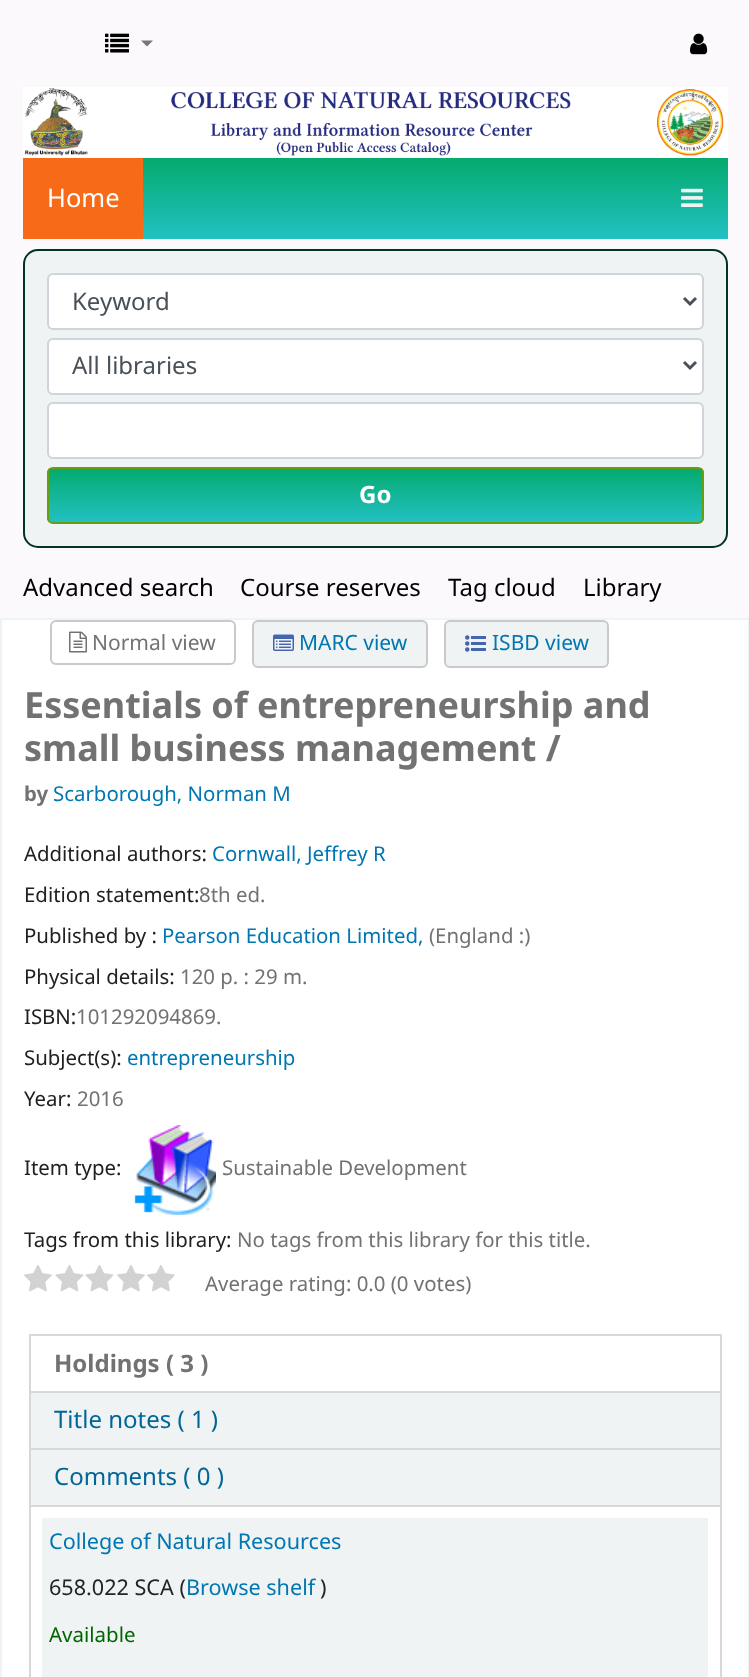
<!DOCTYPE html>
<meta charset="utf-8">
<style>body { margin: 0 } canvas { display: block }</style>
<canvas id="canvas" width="749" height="1677"></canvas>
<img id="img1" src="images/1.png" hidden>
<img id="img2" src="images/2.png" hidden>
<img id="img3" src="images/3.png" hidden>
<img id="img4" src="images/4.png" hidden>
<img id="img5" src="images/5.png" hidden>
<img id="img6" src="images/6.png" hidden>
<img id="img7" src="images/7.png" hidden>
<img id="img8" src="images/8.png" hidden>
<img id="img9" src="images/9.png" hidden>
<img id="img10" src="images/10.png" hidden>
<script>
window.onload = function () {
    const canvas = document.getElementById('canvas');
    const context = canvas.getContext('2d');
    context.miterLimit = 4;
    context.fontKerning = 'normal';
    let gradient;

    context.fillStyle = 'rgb(252, 249, 252)';
    context.fillRect(0, 0, 749, 1677);
    context.drawImage(document.getElementById('img1'), 105, 33, 24, 20);
    context.fillStyle = 'rgb(119, 119, 119)';
    context.beginPath();
    context.moveTo(141, 40.5);
    context.lineTo(153, 40.5);
    context.lineTo(147, 46.5);
    context.closePath();
    context.fill();
    context.drawImage(document.getElementById('img2'), 690, 33, 18, 22);
    context.fillStyle = 'rgb(255, 255, 255)';
    context.fillRect(23, 87, 705, 71);
    context.drawImage(document.getElementById('img3'), 25, 88, 699, 68);
    gradient = context.createLinearGradient(375, 239, 375, 158);
    gradient.addColorStop(0, 'rgb(34, 193, 195)');
    gradient.addColorStop(1, 'rgb(4, 170, 109)');
    context.fillStyle = gradient;
    context.fillRect(143, 158, 585, 81);
    context.fillStyle = 'rgb(247, 107, 24)';
    context.fillRect(23, 158, 120, 81);
    context.drawImage(document.getElementById('img4'), 681, 188, 22, 19);
    context.fillStyle = 'rgb(240, 243, 243)';
    context.beginPath();
    context.roundRect(24, 250, 703, 297, 14);
    context.fill();
    context.strokeStyle = 'rgb(3, 51, 33)';
    context.lineWidth = 2;
    context.stroke();
    context.fillStyle = 'rgb(255, 255, 255)';
    context.beginPath();
    context.roundRect(48, 274, 655, 55, 5);
    context.fill();
    context.strokeStyle = 'rgb(206, 212, 218)';
    context.stroke();
    context.beginPath();
    context.moveTo(684, 298);
    context.lineTo(690, 304);
    context.lineTo(696, 298);
    context.strokeStyle = 'rgb(73, 80, 87)';
    context.lineWidth = 3;
    context.stroke();
    context.beginPath();
    context.roundRect(48, 339, 655, 55, 5);
    context.fill();
    context.strokeStyle = 'rgb(206, 212, 218)';
    context.lineWidth = 2;
    context.stroke();
    context.beginPath();
    context.moveTo(684, 362);
    context.lineTo(690, 368);
    context.lineTo(696, 362);
    context.strokeStyle = 'rgb(73, 80, 87)';
    context.lineWidth = 3;
    context.stroke();
    context.beginPath();
    context.roundRect(48, 403, 655, 55, 5);
    context.fill();
    context.strokeStyle = 'rgb(206, 212, 218)';
    context.lineWidth = 2;
    context.stroke();
    context.save();
    context.beginPath();
    context.roundRect(47, 467, 657, 57, 6);
    context.clip();
    gradient = context.createLinearGradient(375, 522, 375, 468);
    gradient.addColorStop(0, 'rgb(34, 193, 195)');
    gradient.addColorStop(1, 'rgb(4, 170, 109)');
    context.fillStyle = gradient;
    context.fillRect(47, 468, 657, 54);
    context.restore();
    context.beginPath();
    context.roundRect(48, 468, 655, 55, 5);
    context.strokeStyle = 'rgb(104, 157, 13)';
    context.stroke();
    context.beginPath();
    context.rect(1, 619, 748, 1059);
    context.fill();
    context.strokeStyle = 'rgb(240, 243, 243)';
    context.stroke();
    context.beginPath();
    context.roundRect(51, 621, 184, 43, 5);
    context.strokeStyle = 'rgb(201, 201, 201)';
    context.stroke();
    context.drawImage(document.getElementById('img5'), 69, 631, 18, 22);
    context.fillStyle = 'rgb(240, 243, 243)';
    context.beginPath();
    context.roundRect(253, 621, 174, 46, 5);
    context.fill();
    context.stroke();
    context.drawImage(document.getElementById('img6'), 273, 634, 21, 17);
    context.beginPath();
    context.roundRect(445, 621, 163, 46, 5);
    context.fill();
    context.stroke();
    context.drawImage(document.getElementById('img7'), 465, 635, 21, 17);
    context.drawImage(document.getElementById('img8'), 134, 1125, 82, 90);
    context.drawImage(document.getElementById('img9'), 24, 1265, 28, 27);
    context.drawImage(document.getElementById('img10'), 55, 1265, 29, 27);
    context.drawImage(document.getElementById('img10'), 85, 1265, 29, 27);
    context.drawImage(document.getElementById('img9'), 117, 1265, 28, 27);
    context.drawImage(document.getElementById('img9'), 147, 1265, 28, 27);
    context.fillStyle = 'rgb(216, 216, 216)';
    context.fillRect(29, 1334, 693, 2);
    context.fillRect(720, 1334, 2, 58);
    context.fillRect(29, 1334, 2, 58);
    context.fillStyle = 'rgb(240, 243, 243)';
    context.fillRect(31, 1393, 689, 55);
    context.fillStyle = 'rgb(216, 216, 216)';
    context.fillRect(29, 1391, 693, 2);
    context.fillRect(720, 1391, 2, 57);
    context.fillRect(29, 1391, 2, 57);
    context.fillStyle = 'rgb(240, 243, 243)';
    context.fillRect(31, 1450, 689, 55);
    context.fillStyle = 'rgb(216, 216, 216)';
    context.fillRect(29, 1448, 693, 2);
    context.fillRect(720, 1448, 2, 57);
    context.fillRect(29, 1448, 2, 57);
    context.strokeStyle = 'rgb(216, 216, 216)';
    context.strokeRect(30, 1506, 691, 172);
    context.fillStyle = 'rgb(240, 243, 243)';
    context.fillRect(42, 1518, 666, 159);
    context.font = '25.5px Noto Sans';
    context.fillStyle = 'rgb(255, 255, 255)';
    context.fillText('Home', 47, 207);
    context.font = '24px Noto Sans';
    context.fillStyle = 'rgb(73, 80, 87)';
    context.fillText('Keyword', 72, 310);
    context.fillText('All libraries', 72, 374);
    context.font = 'bold 24px Noto Sans';
    context.fillStyle = 'rgb(255, 255, 255)';
    context.fillText('Go', 359, 503);
    context.font = '24px Noto Sans';
    context.fillStyle = 'rgb(0, 0, 0)';
    context.fillText('Advanced search', 23, 596);
    context.fillText('Course reserves', 240, 596);
    context.fillText('Tag cloud', 448, 596);
    context.fillText('Library', 583, 596);
    context.font = '21px Noto Sans';
    context.fillStyle = 'rgb(114, 114, 114)';
    context.fillText('Normal view', 92, 650);
    context.fillStyle = 'rgb(0, 118, 178)';
    context.fillText('MARC view', 299, 650);
    context.fillText('ISBD view', 492, 650);
    context.font = 'bold 36px Noto Sans';
    context.fillStyle = 'rgb(114, 114, 114)';
    context.fillText('Essentials of entrepreneurship and', 24, 718);
    context.fillText('small business management /', 24, 761);
    context.font = 'bold 20.4px Noto Sans';
    context.fillText('by', 24, 801);
    context.font = '20.4px Noto Sans';
    context.fillStyle = 'rgb(0, 118, 178)';
    context.fillText('Scarborough, Norman M', 53, 801);
    context.fillStyle = 'rgb(32, 32, 32)';
    context.fillText('Additional authors:', 24, 861);
    context.fillStyle = 'rgb(0, 118, 178)';
    context.fillText('Cornwall, Jeffrey R', 212, 861);
    context.fillStyle = 'rgb(32, 32, 32)';
    context.fillText('Edition statement:', 24, 902);
    context.fillStyle = 'rgb(114, 114, 114)';
    context.fillText('8th ed.', 199, 902);
    context.fillStyle = 'rgb(32, 32, 32)';
    context.fillText('Published by :', 24, 943);
    context.fillStyle = 'rgb(0, 118, 178)';
    context.fillText('Pearson Education Limited,', 162, 943);
    context.fillStyle = 'rgb(114, 114, 114)';
    context.fillText('(England :)', 429, 943);
    context.fillStyle = 'rgb(32, 32, 32)';
    context.fillText('Physical details:', 24, 984);
    context.fillStyle = 'rgb(114, 114, 114)';
    context.fillText('120 p. : 29 m.', 180, 984);
    context.fillStyle = 'rgb(32, 32, 32)';
    context.fillText('ISBN:', 24, 1024);
    context.fillStyle = 'rgb(114, 114, 114)';
    context.fillText('101292094869.', 76, 1024);
    context.fillStyle = 'rgb(32, 32, 32)';
    context.fillText('Subject(s):', 24, 1065);
    context.fillStyle = 'rgb(0, 118, 178)';
    context.fillText('entrepreneurship', 127, 1065);
    context.fillStyle = 'rgb(32, 32, 32)';
    context.fillText('Year:', 24, 1106);
    context.fillStyle = 'rgb(114, 114, 114)';
    context.fillText('2016', 77, 1106);
    context.fillStyle = 'rgb(32, 32, 32)';
    context.fillText('Item type:', 24, 1175);
    context.fillStyle = 'rgb(114, 114, 114)';
    context.fillText('Sustainable Development', 222, 1175);
    context.fillStyle = 'rgb(32, 32, 32)';
    context.fillText('Tags from this library:', 24, 1247);
    context.fillStyle = 'rgb(114, 114, 114)';
    context.fillText('No tags from this library for this title.', 237, 1247);
    context.fillText('Average rating: 0.0 (0 votes)', 205, 1291);
    context.font = 'bold 24px Noto Sans';
    context.fillText('Holdings ( 3 )', 54, 1372);
    context.font = '24px Noto Sans';
    context.fillStyle = 'rgb(0, 102, 153)';
    context.fillText('Title notes ( 1 )', 54, 1428);
    context.fillText('Comments ( 0 )', 54, 1485);
    context.font = '21.6px Noto Sans';
    context.fillStyle = 'rgb(0, 118, 178)';
    context.fillText('College of Natural Resources', 49, 1549);
    context.fillStyle = 'rgb(33, 37, 41)';
    context.fillText('658.022 SCA (', 49, 1595);
    context.fillStyle = 'rgb(0, 118, 178)';
    context.fillText('Browse shelf', 186, 1595);
    context.fillStyle = 'rgb(33, 37, 41)';
    context.fillText(')', 320, 1595);
    context.font = '20.5px Noto Sans';
    context.fillStyle = 'rgb(0, 102, 0)';
    context.fillText('Available', 49, 1642);
};
</script>
